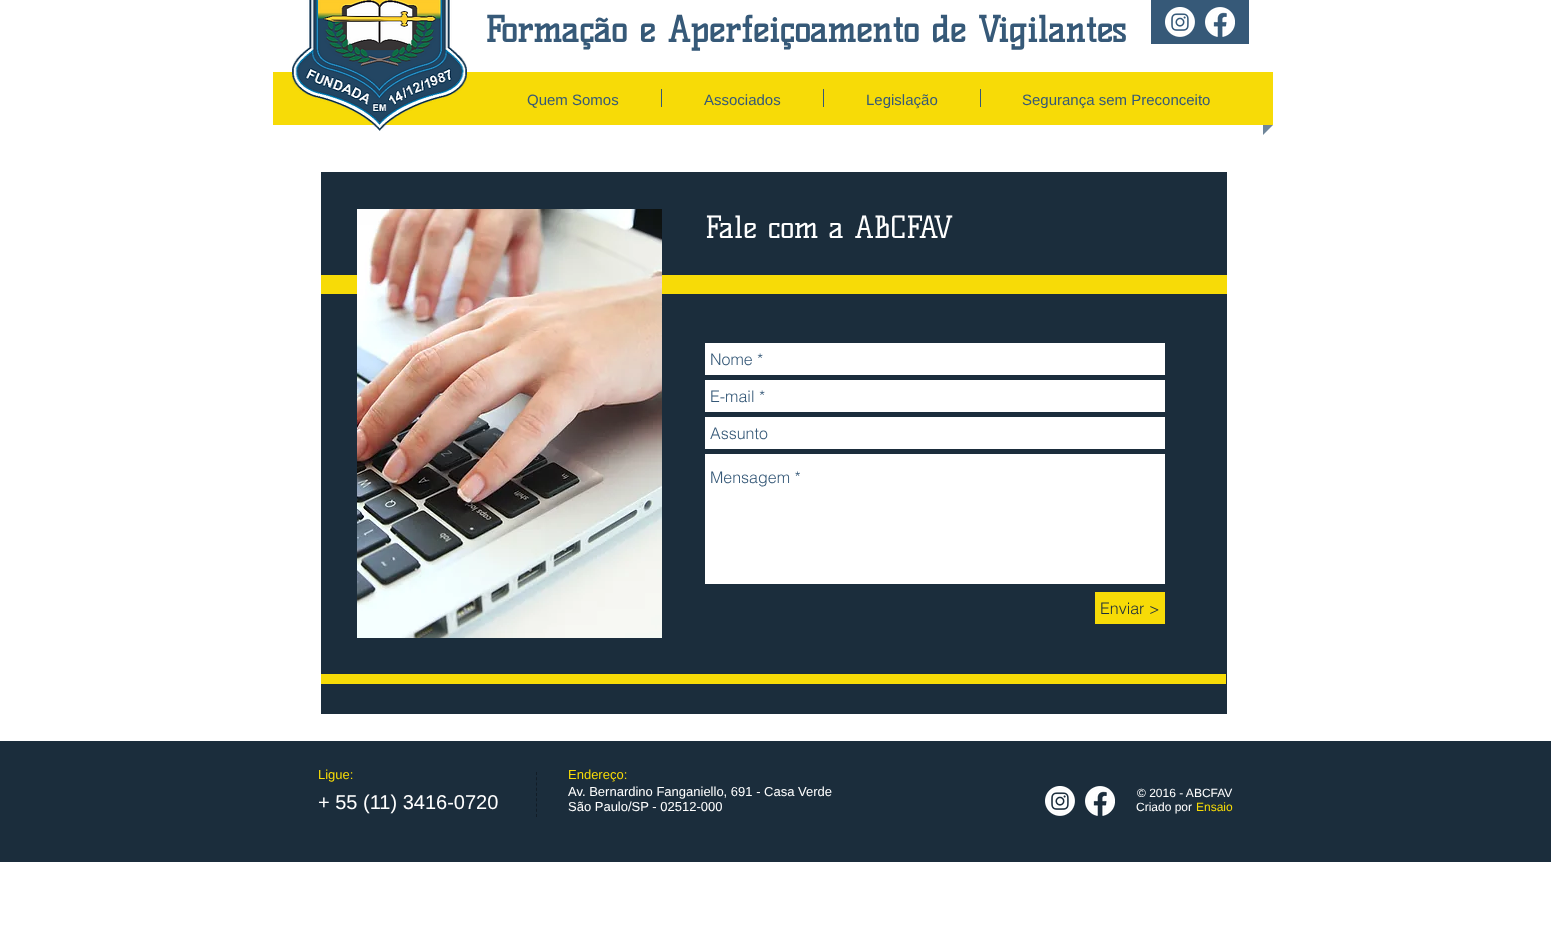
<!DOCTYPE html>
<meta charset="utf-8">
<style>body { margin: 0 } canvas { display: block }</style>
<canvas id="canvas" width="1551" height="941"></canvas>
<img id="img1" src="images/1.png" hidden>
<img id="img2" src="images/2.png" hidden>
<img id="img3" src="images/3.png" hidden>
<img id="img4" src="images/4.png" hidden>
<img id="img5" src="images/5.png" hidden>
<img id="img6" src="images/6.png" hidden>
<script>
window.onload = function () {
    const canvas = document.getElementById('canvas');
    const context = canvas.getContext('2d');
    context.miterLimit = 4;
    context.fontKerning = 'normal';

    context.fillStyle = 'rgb(255, 255, 255)';
    context.fillRect(0, 0, 1551, 941);
    context.fillStyle = 'rgb(247, 219, 7)';
    context.fillRect(273, 72, 1000, 53);
    context.drawImage(document.getElementById('img1'), 292, 0, 175, 131);
    context.fillStyle = 'rgb(54, 89, 120)';
    context.fillRect(1151, 0, 98, 44);
    context.drawImage(document.getElementById('img2'), 1165, 7, 30, 30);
    context.drawImage(document.getElementById('img3'), 1205, 7, 30, 30);
    context.fillRect(661, 89, 1, 18);
    context.fillRect(823, 89, 1, 18);
    context.fillRect(980, 89, 1, 18);
    context.fillStyle = 'rgb(111, 134, 154)';
    context.beginPath();
    context.moveTo(1263, 125);
    context.lineTo(1273, 125);
    context.lineTo(1263, 135);
    context.closePath();
    context.fill();
    context.fillStyle = 'rgb(27, 45, 60)';
    context.fillRect(321, 172, 906, 542);
    context.fillStyle = 'rgb(247, 219, 7)';
    context.fillRect(321, 275, 906, 19);
    context.drawImage(document.getElementById('img4'), 357, 209, 305, 429);
    context.fillStyle = 'rgb(255, 255, 255)';
    context.fillRect(705, 343, 460, 32);
    context.fillRect(705, 380, 460, 32);
    context.fillRect(705, 417, 460, 32);
    context.fillRect(705, 454, 460, 130);
    context.fillStyle = 'rgb(247, 219, 7)';
    context.fillRect(1095, 592, 70, 32);
    context.fillRect(321, 674, 905, 10);
    context.fillStyle = 'rgb(27, 45, 60)';
    context.fillRect(0, 741, 1551, 121);
    context.beginPath();
    context.moveTo(536.5, 772);
    context.lineTo(536.5, 817);
    context.strokeStyle = 'rgb(18, 29, 39)';
    context.setLineDash([3, 2.25]);
    context.stroke();
    context.drawImage(document.getElementById('img5'), 1045, 786, 30, 30);
    context.drawImage(document.getElementById('img6'), 1085, 786, 30, 30);
    context.font = 'bold 35px Kelly Slab';
    context.fillStyle = 'rgb(54, 89, 120)';
    context.fillText('Formação e Aperfeiçoamento de Vigilantes', 485, 42);
    context.font = '15px Liberation Sans';
    context.fillText('Quem Somos', 527, 105);
    context.fillText('Associados', 704, 105);
    context.fillText('Legislação', 866, 105);
    context.fillText('Segurança sem Preconceito', 1022, 105);
    context.font = '30px Kelly Slab';
    context.fillStyle = 'rgb(255, 255, 255)';
    context.fillText('Fale com a ABCFAV', 705, 238);
    context.font = '300 16px helvetica';
    context.fillStyle = 'rgb(54, 89, 120)';
    context.fillText('Nome *', 710, 365);
    context.fillText('E-mail *', 710, 402);
    context.fillText('Assunto', 710, 439);
    context.fillText('Mensagem *', 710, 483);
    context.fillStyle = 'rgb(27, 45, 60)';
    context.fillText('Enviar >', 1100, 614);
    context.font = '13px Liberation Sans';
    context.fillStyle = 'rgb(247, 219, 7)';
    context.fillText('Ligue:', 318, 779);
    context.font = '20px Liberation Sans';
    context.fillStyle = 'rgb(255, 255, 255)';
    context.fillText('+ 55 (11) 3416-0720', 318, 809);
    context.font = '13px Liberation Sans';
    context.fillStyle = 'rgb(247, 219, 7)';
    context.fillText('Endereço:', 568, 779);
    context.fillStyle = 'rgb(255, 255, 255)';
    context.fillText('Av. Bernardino Fanganiello, 691 - Casa Verde', 568, 796);
    context.fillText('São Paulo/SP - 02512-000', 568, 811);
    context.font = '12px Liberation Sans';
    context.fillText('© 2016 - ABCFAV', 1137, 797);
    context.fillText('Criado por', 1136, 811);
    context.fillStyle = 'rgb(247, 219, 7)';
    context.fillText('Ensaio', 1196, 811);
};
</script>
